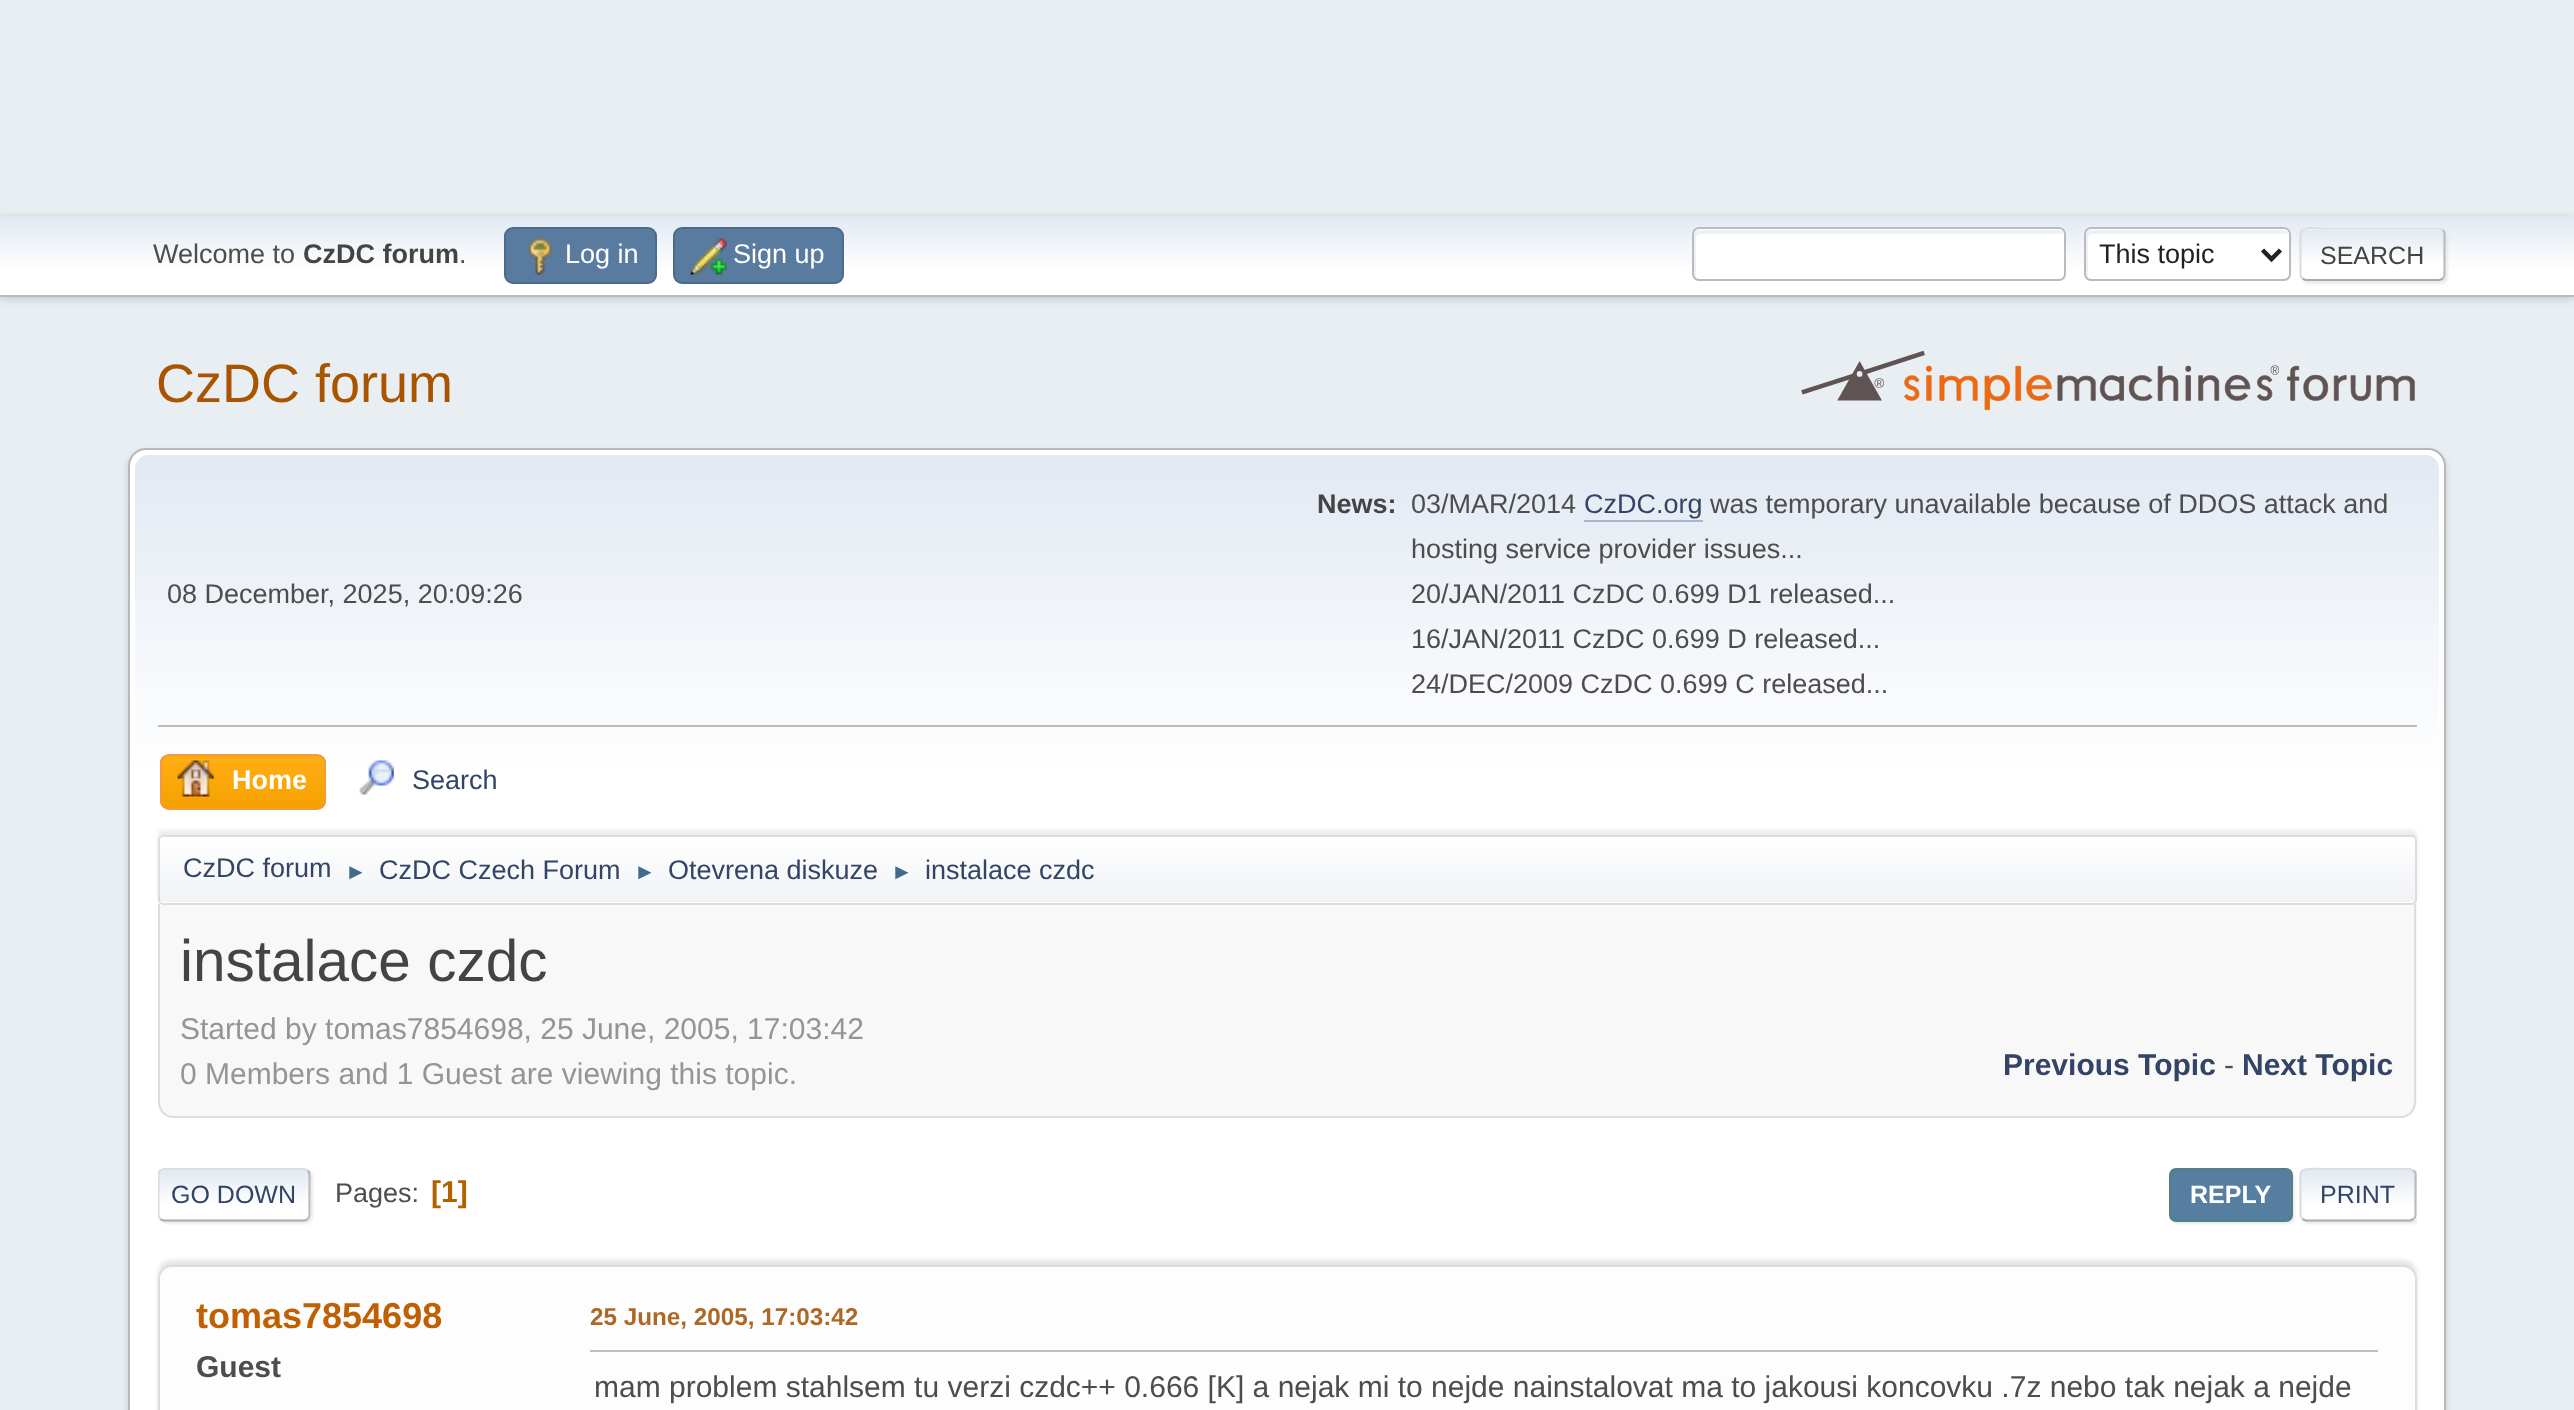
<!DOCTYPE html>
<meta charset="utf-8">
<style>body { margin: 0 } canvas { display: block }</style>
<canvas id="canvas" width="2574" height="1410"></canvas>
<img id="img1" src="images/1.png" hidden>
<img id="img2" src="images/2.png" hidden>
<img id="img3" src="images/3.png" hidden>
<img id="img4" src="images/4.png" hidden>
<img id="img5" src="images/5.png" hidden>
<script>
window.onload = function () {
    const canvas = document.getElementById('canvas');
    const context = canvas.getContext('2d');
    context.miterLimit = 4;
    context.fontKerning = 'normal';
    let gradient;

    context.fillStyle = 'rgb(233, 238, 242)';
    context.fillRect(0, 0, 2574, 1410);
    context.fillStyle = 'rgba(0, 0, 0, 0.16)';
    context.filter = 'blur(4.5px)';
    context.beginPath();
    context.rect(0, 218, 2574, 81);
    context.fill();
    context.filter = 'none';
    gradient = context.createLinearGradient(1287, 216, 1287, 295);
    gradient.addColorStop(0, 'rgb(226, 233, 243)');
    gradient.addColorStop(0.7, 'rgb(255, 255, 255)');
    context.fillStyle = gradient;
    context.fillRect(0, 216, 2574, 79);
    context.fillStyle = 'rgb(187, 187, 187)';
    context.fillRect(0, 295, 2574, 2);
    context.fillStyle = 'rgb(89, 123, 159)';
    context.beginPath();
    context.roundRect(505, 228, 151, 55, 8);
    context.fill();
    context.strokeStyle = 'rgb(74, 107, 140)';
    context.lineWidth = 2;
    context.stroke();
    context.drawImage(document.getElementById('img1'), 528, 238, 24, 37);
    context.beginPath();
    context.roundRect(674, 228, 169, 55, 8);
    context.fill();
    context.stroke();
    context.drawImage(document.getElementById('img2'), 690, 238, 37, 37);
    context.fillStyle = 'rgb(255, 255, 255)';
    context.beginPath();
    context.roundRect(1692, 227, 374, 54, 7);
    context.fill();
    context.fillStyle = 'rgb(236, 241, 248)';
    context.beginPath();
    context.moveTo(1701, 234);
    context.lineTo(2061, 234);
    context.lineTo(2063, 234);
    context.bezierCurveTo(2063, 232, 2061, 230, 2058, 230);
    context.lineTo(1699, 230);
    context.bezierCurveTo(1696, 230, 1694, 232, 1694, 235);
    context.lineTo(1694, 274);
    context.bezierCurveTo(1694, 276, 1695, 277, 1696, 278);
    context.lineTo(1696, 238);
    context.bezierCurveTo(1696, 236, 1699, 234, 1701, 234);
    context.closePath();
    context.fill();
    context.beginPath();
    context.roundRect(1693, 228, 372, 52, 6);
    context.strokeStyle = 'rgb(187, 187, 187)';
    context.stroke();
    context.fillStyle = 'rgb(255, 255, 255)';
    context.beginPath();
    context.roundRect(2084, 227, 207, 54, 7);
    context.fill();
    context.fillStyle = 'rgb(236, 241, 248)';
    context.beginPath();
    context.moveTo(2092, 234);
    context.lineTo(2286, 234);
    context.lineTo(2288, 235);
    context.bezierCurveTo(2288, 232, 2286, 230, 2283, 230);
    context.lineTo(2091, 230);
    context.bezierCurveTo(2088, 230, 2086, 232, 2086, 235);
    context.lineTo(2086, 274);
    context.bezierCurveTo(2086, 276, 2087, 277, 2088, 278);
    context.lineTo(2088, 238);
    context.bezierCurveTo(2088, 236, 2090, 234, 2092, 234);
    context.closePath();
    context.fill();
    context.beginPath();
    context.roundRect(2085, 228, 205, 52, 6);
    context.stroke();
    context.beginPath();
    context.moveTo(2262.5, 250);
    context.lineTo(2271.5, 259);
    context.lineTo(2280.5, 250);
    context.strokeStyle = 'rgb(34, 34, 34)';
    context.lineWidth = 4.5;
    context.stroke();
    context.fillStyle = 'rgba(221, 221, 221, 0.57)';
    context.filter = 'blur(1px)';
    context.beginPath();
    context.roundRect(2302, 230, 146, 54, 7);
    context.fill();
    context.filter = 'none';
    context.save();
    context.beginPath();
    context.roundRect(2300, 227, 146, 54, 7);
    context.clip();
    gradient = context.createLinearGradient(2373, 180, 2373, 230);
    gradient.addColorStop(0, 'rgb(226, 233, 243)');
    gradient.addColorStop(0.7, 'rgb(255, 255, 255)');
    context.fillStyle = gradient;
    context.fillRect(2300, 227, 146, 3);
    gradient = context.createLinearGradient(2373, 230, 2373, 279);
    gradient.addColorStop(0, 'rgb(226, 233, 243)');
    gradient.addColorStop(0.7, 'rgb(255, 255, 255)');
    context.fillStyle = gradient;
    context.fillRect(2300, 230, 146, 49);
    gradient = context.createLinearGradient(2373, 279, 2373, 329);
    gradient.addColorStop(0, 'rgb(226, 233, 243)');
    gradient.addColorStop(0.7, 'rgb(255, 255, 255)');
    context.fillStyle = gradient;
    context.fillRect(2300, 279, 146, 2);
    context.restore();
    context.beginPath();
    context.moveTo(2443, 230);
    context.bezierCurveTo(2444, 231, 2444.5, 232.5, 2444.5, 234);
    context.lineTo(2444.5, 274.5);
    context.bezierCurveTo(2444.5, 276, 2444, 277.5, 2443, 278.5);
    context.strokeStyle = 'rgb(187, 187, 187)';
    context.lineWidth = 2.2;
    context.stroke();
    context.beginPath();
    context.moveTo(2443, 278.5);
    context.lineTo(2439.5, 280);
    context.lineTo(2305.5, 280);
    context.lineTo(2302.5, 278.5);
    context.strokeStyle = 'rgb(170, 170, 170)';
    context.stroke();
    context.beginPath();
    context.moveTo(2302.5, 278.5);
    context.bezierCurveTo(2299.5, 276, 2300.5, 271, 2300.5, 268);
    context.lineTo(2300.5, 254);
    context.bezierCurveTo(2300.5, 223.5, 2296, 228.5, 2328.5, 228.5);
    context.lineTo(2439, 228.5);
    context.bezierCurveTo(2440.5, 228.5, 2442, 229, 2443, 230);
    context.strokeStyle = 'rgb(221, 221, 221)';
    context.stroke();
    context.drawImage(document.getElementById('img3'), 1801, 350, 614, 61);
    context.fillStyle = 'rgba(0, 0, 0, 0.14)';
    context.filter = 'blur(3.5px)';
    context.beginPath();
    context.roundRect(128, 452, 2318, 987, 18);
    context.fill();
    context.filter = 'none';
    context.fillStyle = 'rgb(255, 255, 255)';
    context.beginPath();
    context.roundRect(129, 449, 2316, 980, 17);
    context.fill();
    context.strokeStyle = 'rgb(184, 184, 184)';
    context.lineWidth = 2;
    context.stroke();
    gradient = context.createLinearGradient(1287, 454, 1287, 909);
    gradient.addColorStop(0, 'rgb(226, 233, 243)');
    gradient.addColorStop(0.7, 'rgb(255, 255, 255)');
    context.fillStyle = gradient;
    context.beginPath();
    context.roundRect(135, 455, 2304, 454, [14, 14, 0, 0]);
    context.fill();
    context.fillStyle = 'rgb(187, 187, 187)';
    context.fillRect(158, 725, 2259, 2);
    context.fillStyle = 'rgb(168, 182, 207)';
    context.fillRect(1584, 520, 119, 2);
    context.save();
    context.beginPath();
    context.roundRect(160, 754, 166, 56, 9);
    context.clip();
    gradient = context.createLinearGradient(243, 756, 243, 808);
    gradient.addColorStop(0, 'rgb(255, 174, 20)');
    gradient.addColorStop(1, 'rgb(245, 161, 0)');
    context.fillStyle = gradient;
    context.fillRect(160, 756, 166, 52);
    context.restore();
    context.beginPath();
    context.roundRect(161, 755, 164, 54, 8);
    context.strokeStyle = 'rgb(244, 154, 58)';
    context.stroke();
    context.drawImage(document.getElementById('img4'), 177, 760, 37, 37);
    context.drawImage(document.getElementById('img5'), 359, 760, 35, 35);
    context.fillStyle = 'rgba(0, 0, 0, 0.08)';
    context.filter = 'blur(2px)';
    context.beginPath();
    context.roundRect(158, 830, 2259, 70, 5);
    context.fill();
    context.filter = 'none';
    context.fillStyle = 'rgb(255, 255, 255)';
    context.beginPath();
    context.roundRect(158, 835, 2259, 70, 5);
    context.fill();
    context.save();
    context.beginPath();
    context.roundRect(158, 835, 2259, 70, 5);
    context.clip();
    gradient = context.createLinearGradient(1287, 837, 1287, 902);
    gradient.addColorStop(0, 'rgb(255, 255, 255)');
    gradient.addColorStop(0.95, 'rgb(241, 243, 245)');
    context.fillStyle = gradient;
    context.fillRect(158, 837, 2259, 65);
    context.restore();
    context.beginPath();
    context.roundRect(159, 836, 2257, 68, 4);
    context.strokeStyle = 'rgb(221, 221, 221)';
    context.stroke();
    context.fillStyle = 'rgb(248, 248, 248)';
    context.beginPath();
    context.roundRect(158, 905, 2259, 213, [0, 0, 16, 16]);
    context.fill();
    context.fillStyle = 'rgb(221, 221, 221)';
    context.beginPath();
    context.moveTo(158, 904);
    context.lineTo(2416, 904);
    context.lineTo(2416, 1102);
    context.bezierCurveTo(2416, 1111, 2409, 1118, 2401, 1118);
    context.lineTo(173, 1118);
    context.bezierCurveTo(165, 1118, 158, 1111, 158, 1102);
    context.closePath();
    context.moveTo(160, 904);
    context.lineTo(2414, 904);
    context.lineTo(2414, 1102);
    context.bezierCurveTo(2414, 1110, 2408, 1116, 2401, 1116);
    context.lineTo(173, 1116);
    context.bezierCurveTo(166, 1116, 160, 1110, 160, 1102);
    context.closePath();
    context.fill('evenodd');
    context.fillStyle = 'rgba(221, 221, 221, 0.57)';
    context.filter = 'blur(1px)';
    context.beginPath();
    context.roundRect(160, 1170, 153, 54, 7);
    context.fill();
    context.filter = 'none';
    context.save();
    context.beginPath();
    context.roundRect(158, 1168, 153, 54, 7);
    context.clip();
    gradient = context.createLinearGradient(234, 1170, 234, 1220);
    gradient.addColorStop(0, 'rgb(226, 233, 243)');
    gradient.addColorStop(0.7, 'rgb(255, 255, 255)');
    context.fillStyle = gradient;
    context.fillRect(158, 1170, 153, 50);
    gradient = context.createLinearGradient(234, 1220, 234, 1269);
    gradient.addColorStop(0, 'rgb(226, 233, 243)');
    gradient.addColorStop(0.7, 'rgb(255, 255, 255)');
    context.fillStyle = gradient;
    context.fillRect(158, 1220, 153, 2);
    context.restore();
    context.beginPath();
    context.moveTo(307.5, 1170.5);
    context.bezierCurveTo(309, 1171.5, 309.5, 1173, 309.5, 1174.5);
    context.lineTo(309.5, 1215);
    context.bezierCurveTo(309.5, 1216.5, 309, 1218, 307.5, 1219);
    context.strokeStyle = 'rgb(187, 187, 187)';
    context.lineWidth = 2.2;
    context.stroke();
    context.beginPath();
    context.moveTo(307.5, 1219);
    context.bezierCurveTo(306.5, 1220, 305, 1220.5, 304, 1220.5);
    context.lineTo(164, 1220.5);
    context.bezierCurveTo(163, 1220.5, 161.5, 1220, 160.5, 1219);
    context.strokeStyle = 'rgb(170, 170, 170)';
    context.stroke();
    context.save();
    context.beginPath();
    context.rect(158, 1152, 2259, 86);
    context.clip();
    context.beginPath();
    context.moveTo(160.5, 1219);
    context.bezierCurveTo(159, 1218, 158.5, 1216.5, 158.5, 1215);
    context.lineTo(158.5, 1174.5);
    context.bezierCurveTo(158.5, 1173, 159, 1171.5, 160.5, 1170.5);
    context.bezierCurveTo(161.5, 1169.5, 163, 1169, 164, 1169);
    context.lineTo(304, 1169);
    context.bezierCurveTo(305, 1169, 306.5, 1169.5, 307.5, 1170.5);
    context.strokeStyle = 'rgb(221, 221, 221)';
    context.stroke();
    context.restore();
    context.filter = 'blur(1px)';
    context.beginPath();
    context.roundRect(2171, 1170, 124, 54, 7);
    context.fill();
    context.filter = 'none';
    context.fillStyle = 'rgb(85, 126, 160)';
    context.beginPath();
    context.roundRect(2170, 1169, 122, 52, 6);
    context.fill();
    context.strokeStyle = 'rgb(85, 128, 128)';
    context.lineWidth = 2;
    context.stroke();
    context.save();
    context.beginPath();
    context.rect(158, 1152, 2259, 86);
    context.clip();
    context.fillStyle = 'rgba(221, 221, 221, 0.57)';
    context.filter = 'blur(1px)';
    context.beginPath();
    context.roundRect(2302, 1170, 117, 54, 7);
    context.fill();
    context.filter = 'none';
    context.restore();
    context.fillStyle = 'rgb(255, 255, 255)';
    context.beginPath();
    context.roundRect(2300, 1168, 117, 54, 7);
    context.fill();
    context.save();
    context.beginPath();
    context.roundRect(2300, 1168, 117, 54, 7);
    context.clip();
    gradient = context.createLinearGradient(2358, 1170, 2358, 1220);
    gradient.addColorStop(0, 'rgb(226, 233, 243)');
    gradient.addColorStop(0.7, 'rgb(255, 255, 255)');
    context.fillStyle = gradient;
    context.fillRect(2300, 1170, 117, 50);
    gradient = context.createLinearGradient(2358, 1220, 2358, 1269);
    gradient.addColorStop(0, 'rgb(226, 233, 243)');
    gradient.addColorStop(0.7, 'rgb(255, 255, 255)');
    context.fillStyle = gradient;
    context.fillRect(2300, 1220, 117, 2);
    context.restore();
    context.beginPath();
    context.moveTo(2413.5, 1170.5);
    context.bezierCurveTo(2415, 1171.5, 2415.5, 1173, 2415.5, 1174.5);
    context.lineTo(2415.5, 1215);
    context.bezierCurveTo(2415.5, 1216.5, 2415, 1218, 2413.5, 1219);
    context.strokeStyle = 'rgb(187, 187, 187)';
    context.lineWidth = 2.2;
    context.stroke();
    context.beginPath();
    context.moveTo(2413.5, 1219);
    context.lineTo(2410.5, 1220.5);
    context.lineTo(2305.5, 1220.5);
    context.lineTo(2302.5, 1219);
    context.strokeStyle = 'rgb(170, 170, 170)';
    context.stroke();
    context.beginPath();
    context.moveTo(2302.5, 1219);
    context.bezierCurveTo(2299.5, 1216.5, 2300.5, 1211.5, 2300.5, 1208);
    context.lineTo(2300.5, 1195);
    context.bezierCurveTo(2300.5, 1166.5, 2295.5, 1169, 2323.5, 1169);
    context.lineTo(2410, 1169);
    context.lineTo(2413.5, 1170.5);
    context.strokeStyle = 'rgb(221, 221, 221)';
    context.stroke();
    context.fillStyle = 'rgba(0, 0, 0, 0.1)';
    context.filter = 'blur(2px)';
    context.beginPath();
    context.roundRect(158, 1260, 2259, 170, 14);
    context.fill();
    context.filter = 'none';
    context.fillStyle = 'rgb(253, 253, 253)';
    context.beginPath();
    context.roundRect(159, 1266, 2257, 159, 13);
    context.fill();
    context.lineWidth = 2;
    context.stroke();
    context.fillStyle = 'rgb(191, 191, 191)';
    context.fillRect(590, 1350, 1788, 2);
    context.font = '27px Liberation Sans';
    context.fillStyle = 'rgb(77, 77, 77)';
    context.fillText('Welcome to', 153, 263);
    context.font = 'bold 27px Liberation Sans';
    context.fillStyle = 'rgb(68, 68, 68)';
    context.fillText('CzDC forum', 303, 263);
    context.font = '27px Liberation Sans';
    context.fillStyle = 'rgb(77, 77, 77)';
    context.fillText('.', 459, 263);
    context.fillStyle = 'rgb(255, 255, 255)';
    context.fillText('Log in', 565, 263);
    context.fillText('Sign up', 733, 263);
    context.fillStyle = 'rgb(34, 34, 34)';
    context.fillText('This topic', 2099, 263);
    context.font = '25px Liberation Sans';
    context.fillStyle = 'rgb(68, 68, 68)';
    context.fillText('SEARCH', 2320, 264);
    context.font = '54px Liberation Sans';
    context.fillStyle = 'rgb(168, 84, 0)';
    context.fillText('CzDC forum', 156, 402);
    context.font = '27px Liberation Sans';
    context.fillStyle = 'rgb(77, 77, 77)';
    context.fillText('08 December, 2025, 20:09:26', 167, 603);
    context.font = 'bold 27px Liberation Sans';
    context.fillStyle = 'rgb(68, 68, 68)';
    context.fillText('News:', 1317, 513);
    context.font = '27px Liberation Sans';
    context.fillStyle = 'rgb(77, 77, 77)';
    context.fillText('03/MAR/2014', 1411, 513);
    context.fillStyle = 'rgb(51, 68, 102)';
    context.fillText('CzDC.org', 1584, 513);
    context.fillStyle = 'rgb(77, 77, 77)';
    context.fillText('was temporary unavailable because of DDOS attack and', 1710, 513);
    context.fillText('hosting service provider issues...', 1411, 558);
    context.fillText('20/JAN/2011 CzDC 0.699 D1 released...', 1411, 603);
    context.fillText('16/JAN/2011 CzDC 0.699 D released...', 1411, 648);
    context.fillText('24/DEC/2009 CzDC 0.699 C released...', 1411, 693);
    context.font = 'bold 27px Liberation Sans';
    context.fillStyle = 'rgb(255, 255, 255)';
    context.fillText('Home', 232, 789);
    context.font = '27px Liberation Sans';
    context.fillStyle = 'rgb(51, 68, 102)';
    context.fillText('Search', 412, 789);
    context.fillText('CzDC forum', 183, 877);
    context.font = '22px Liberation Sans';
    context.fillStyle = 'rgb(63, 107, 140)';
    context.fillText('►', 345, 879);
    context.font = '27px Liberation Sans';
    context.fillStyle = 'rgb(51, 68, 102)';
    context.fillText('CzDC Czech Forum', 379, 879);
    context.font = '22px Liberation Sans';
    context.fillStyle = 'rgb(63, 107, 140)';
    context.fillText('►', 634, 879);
    context.font = '27px Liberation Sans';
    context.fillStyle = 'rgb(51, 68, 102)';
    context.fillText('Otevrena diskuze', 668, 879);
    context.font = '22px Liberation Sans';
    context.fillStyle = 'rgb(63, 107, 140)';
    context.fillText('►', 891, 879);
    context.font = '27px Liberation Sans';
    context.fillStyle = 'rgb(51, 68, 102)';
    context.fillText('instalace czdc', 925, 879);
    context.font = '58.5px Liberation Sans';
    context.fillStyle = 'rgb(68, 68, 68)';
    context.fillText('instalace czdc', 180, 981);
    context.font = '30px Liberation Sans';
    context.fillStyle = 'rgb(149, 149, 149)';
    context.fillText('Started by tomas7854698, 25 June, 2005, 17:03:42', 180, 1039);
    context.fillText('0 Members and 1 Guest are viewing this topic.', 180, 1084);
    context.font = 'bold 30px Liberation Sans';
    context.fillStyle = 'rgb(51, 68, 102)';
    context.fillText('Previous Topic', 2003, 1075);
    context.font = '30px Liberation Sans';
    context.fillStyle = 'rgb(77, 77, 77)';
    context.fillText('-', 2224, 1075);
    context.font = 'bold 30px Liberation Sans';
    context.fillStyle = 'rgb(51, 68, 102)';
    context.fillText('Next Topic', 2242, 1075);
    context.font = '25px Liberation Sans';
    context.fillText('GO DOWN', 171, 1203);
    context.font = '27px Liberation Sans';
    context.fillStyle = 'rgb(77, 77, 77)';
    context.fillText('Pages:', 335, 1202);
    context.font = 'bold 30px Liberation Sans';
    context.fillStyle = 'rgb(180, 97, 0)';
    context.fillText('[1]', 431, 1202);
    context.font = 'bold 25px Liberation Sans';
    context.fillStyle = 'rgb(255, 255, 255)';
    context.fillText('REPLY', 2190, 1203);
    context.font = '25px Liberation Sans';
    context.fillStyle = 'rgb(51, 68, 102)';
    context.fillText('PRINT', 2320, 1203);
    context.font = 'bold 36px Liberation Sans';
    context.fillStyle = 'rgb(192, 96, 2)';
    context.fillText('tomas7854698', 196, 1328);
    context.font = 'bold 30px Liberation Sans';
    context.fillStyle = 'rgb(77, 77, 77)';
    context.fillText('Guest', 196, 1377);
    context.font = 'bold 24.25px Liberation Sans';
    context.fillStyle = 'rgb(173, 104, 37)';
    context.fillText('25 June, 2005, 17:03:42', 590, 1325);
    context.font = '30px Liberation Sans';
    context.fillStyle = 'rgb(77, 77, 77)';
    context.fillText('mam problem stahlsem tu verzi czdc++ 0.666 [K] a nejak mi to nejde nainstalovat ma to jakousi koncovku .7z nebo tak nejak a nejde', 594, 1397);
};
</script>
